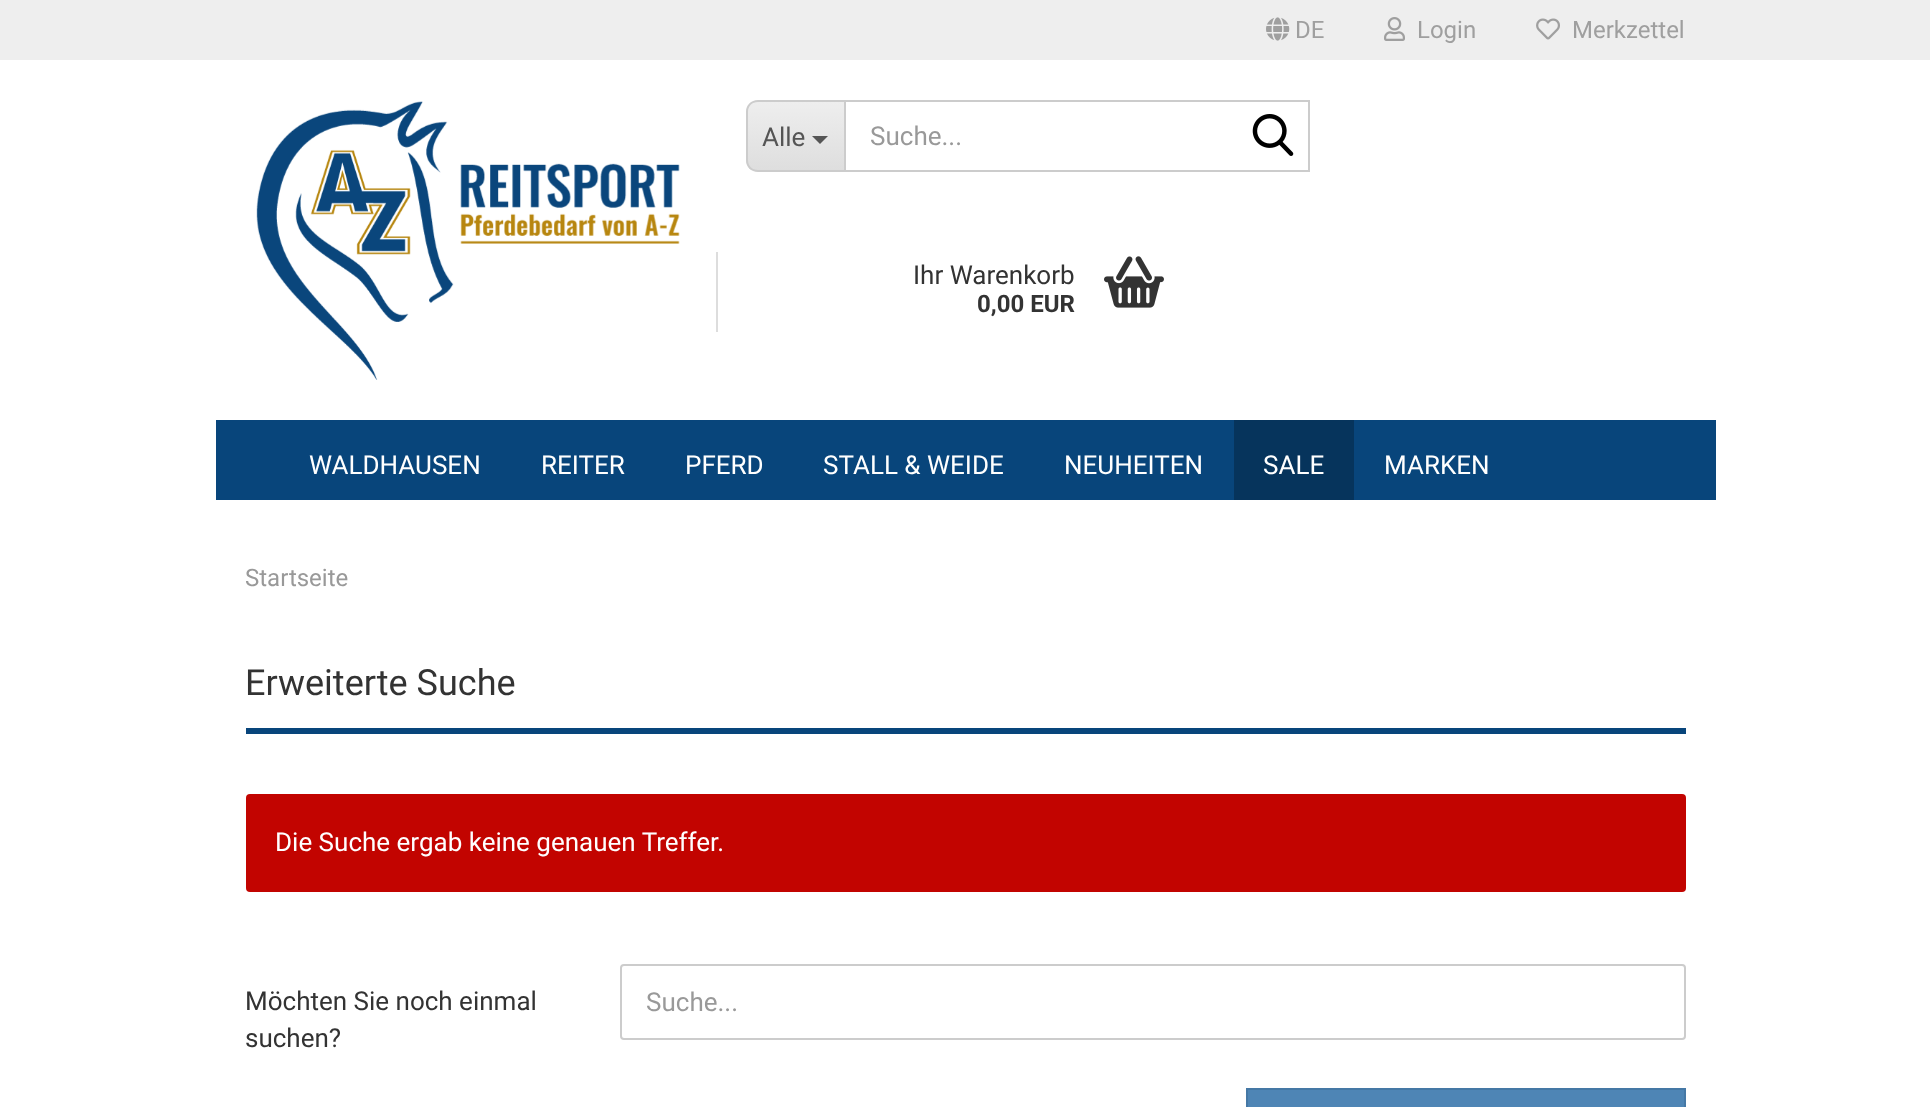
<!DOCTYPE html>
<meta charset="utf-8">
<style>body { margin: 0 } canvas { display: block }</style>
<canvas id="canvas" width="1930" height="1107"></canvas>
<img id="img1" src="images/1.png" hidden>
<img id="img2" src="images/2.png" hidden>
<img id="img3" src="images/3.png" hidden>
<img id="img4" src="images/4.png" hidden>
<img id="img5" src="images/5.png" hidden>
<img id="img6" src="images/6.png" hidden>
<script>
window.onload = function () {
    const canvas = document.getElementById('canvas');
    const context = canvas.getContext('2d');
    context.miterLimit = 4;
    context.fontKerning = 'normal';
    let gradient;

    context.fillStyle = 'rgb(255, 255, 255)';
    context.fillRect(0, 0, 1930, 1107);
    context.fillStyle = 'rgb(238, 238, 238)';
    context.fillRect(0, 0, 1930, 60);
    context.drawImage(document.getElementById('img1'), 1266, 17, 24, 24);
    context.drawImage(document.getElementById('img2'), 1384, 17, 21, 24);
    context.drawImage(document.getElementById('img3'), 1536, 18, 24, 22);
    context.drawImage(document.getElementById('img4'), 256, 101, 424, 279);
    context.save();
    context.beginPath();
    context.roundRect(746, 100, 98, 72, [12, 0, 0, 12]);
    context.clip();
    gradient = context.createLinearGradient(796, 102, 796, 170);
    gradient.addColorStop(0, 'rgb(238, 238, 238)');
    gradient.addColorStop(1, 'rgb(222, 222, 222)');
    context.fillStyle = gradient;
    context.fillRect(746, 102, 98, 68);
    context.restore();
    context.fillStyle = 'rgb(204, 204, 204)';
    context.beginPath();
    context.moveTo(758, 100);
    context.lineTo(844, 100);
    context.lineTo(844, 172);
    context.lineTo(758, 172);
    context.bezierCurveTo(751, 172, 746, 167, 746, 160);
    context.lineTo(746, 112);
    context.bezierCurveTo(746, 105, 751, 100, 758, 100);
    context.closePath();
    context.moveTo(758, 102);
    context.lineTo(844, 102);
    context.lineTo(844, 170);
    context.lineTo(758, 170);
    context.bezierCurveTo(752, 170, 748, 166, 748, 160);
    context.lineTo(748, 112);
    context.bezierCurveTo(748, 106, 752, 102, 758, 102);
    context.closePath();
    context.fill('evenodd');
    context.fillStyle = 'rgb(85, 85, 85)';
    context.beginPath();
    context.moveTo(812, 136);
    context.lineTo(828, 136);
    context.lineTo(820, 144);
    context.closePath();
    context.fill();
    context.strokeStyle = 'rgb(204, 204, 204)';
    context.lineWidth = 2;
    context.strokeRect(845, 101, 464, 70);
    context.drawImage(document.getElementById('img5'), 1252, 114, 42, 42);
    context.fillStyle = 'rgb(221, 221, 221)';
    context.fillRect(716, 252, 2, 80);
    context.drawImage(document.getElementById('img6'), 1104, 256, 60, 52);
    context.fillStyle = 'rgb(8, 69, 123)';
    context.fillRect(216, 420, 1500, 80);
    context.fillStyle = 'rgb(6, 52, 92)';
    context.fillRect(1234, 420, 120, 80);
    context.fillStyle = 'rgb(8, 69, 123)';
    context.fillRect(246, 728, 1440, 6);
    context.fillStyle = 'rgb(194, 4, 0)';
    context.beginPath();
    context.roundRect(246, 794, 1440, 98, 4);
    context.fill();
    context.beginPath();
    context.roundRect(621, 965, 1064, 74, 3);
    context.stroke();
    context.fillStyle = 'rgb(78, 133, 181)';
    context.beginPath();
    context.rect(1247, 1089, 438, 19);
    context.fill();
    context.strokeStyle = 'rgb(69, 120, 165)';
    context.stroke();
    context.font = '24px Roboto';
    context.fillStyle = 'rgb(159, 159, 159)';
    context.fillText('DE', 1295, 38);
    context.fillText('Login', 1417, 38);
    context.fillText('Merkzettel', 1572, 38);
    context.font = '26px Roboto';
    context.fillStyle = 'rgb(85, 85, 85)';
    context.fillText('Alle', 762, 146);
    context.fillStyle = 'rgb(153, 153, 153)';
    context.fillText('Suche...', 870, 145);
    context.fillStyle = 'rgb(51, 51, 51)';
    context.fillText('Ihr Warenkorb', 913, 284);
    context.font = 'bold 24px Roboto';
    context.fillText('0,00 EUR', 977, 312);
    context.font = '26px Roboto';
    context.fillStyle = 'rgb(255, 255, 255)';
    context.fillText('WALDHAUSEN', 309, 474);
    context.fillText('REITER', 541, 474);
    context.fillText('PFERD', 685, 474);
    context.fillText('STALL & WEIDE', 823, 474);
    context.fillText('NEUHEITEN', 1064, 474);
    context.fillText('SALE', 1263, 474);
    context.fillText('MARKEN', 1384, 474);
    context.font = '24px Roboto';
    context.fillStyle = 'rgb(153, 153, 153)';
    context.fillText('Startseite', 245, 586);
    context.font = '36px Roboto';
    context.fillStyle = 'rgb(51, 51, 51)';
    context.fillText('Erweiterte Suche', 245, 695);
    context.font = '26px Roboto';
    context.fillStyle = 'rgb(255, 255, 255)';
    context.fillText('Die Suche ergab keine genauen Treffer.', 275, 851);
    context.fillStyle = 'rgb(51, 51, 51)';
    context.fillText('Möchten Sie noch einmal', 245, 1010);
    context.fillText('suchen?', 245, 1047);
    context.fillStyle = 'rgb(153, 153, 153)';
    context.fillText('Suche...', 646, 1011);
};
</script>
